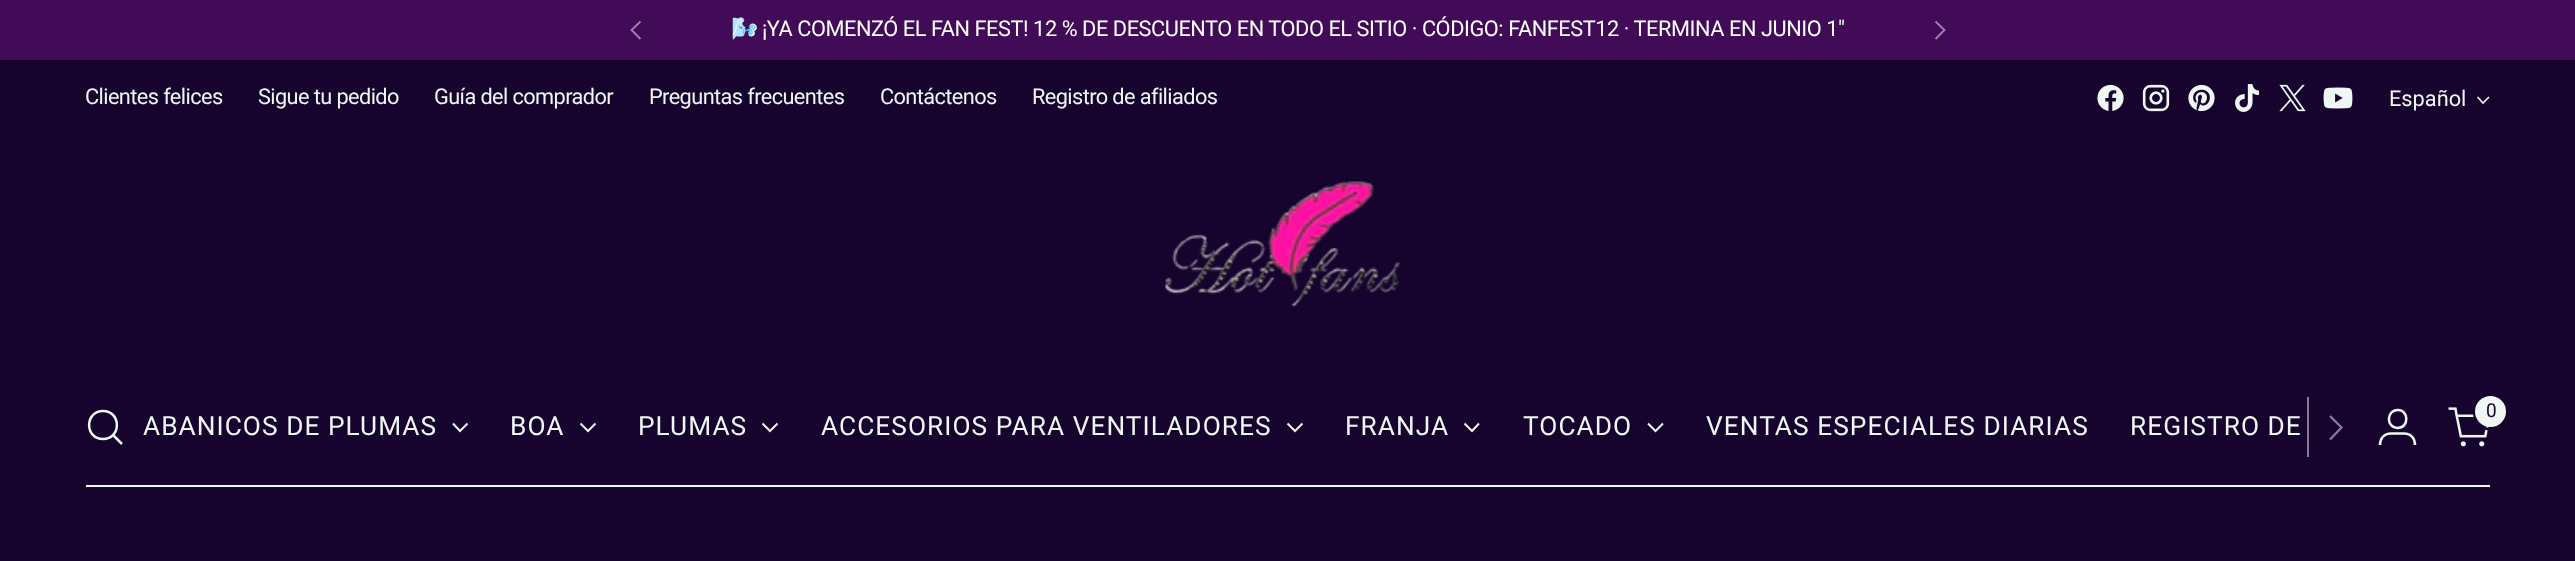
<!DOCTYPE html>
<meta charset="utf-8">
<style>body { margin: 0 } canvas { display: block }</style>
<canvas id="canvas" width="2575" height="561"></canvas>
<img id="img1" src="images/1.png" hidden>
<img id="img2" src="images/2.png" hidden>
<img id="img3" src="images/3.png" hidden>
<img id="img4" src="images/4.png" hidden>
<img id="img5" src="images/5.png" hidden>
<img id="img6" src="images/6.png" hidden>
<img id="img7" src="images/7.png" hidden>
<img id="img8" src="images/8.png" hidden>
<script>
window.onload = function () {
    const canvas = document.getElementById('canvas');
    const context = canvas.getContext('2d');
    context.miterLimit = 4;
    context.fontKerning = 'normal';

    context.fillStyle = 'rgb(22, 3, 46)';
    context.fillRect(0, 0, 2575, 561);
    context.fillStyle = 'rgb(65, 11, 88)';
    context.fillRect(0, 0, 2575, 60);
    context.beginPath();
    context.moveTo(640.5, 21.5);
    context.lineTo(631.5, 30);
    context.lineTo(640.5, 39);
    context.strokeStyle = 'rgb(160, 133, 172)';
    context.lineWidth = 1.8;
    context.stroke();
    context.beginPath();
    context.moveTo(1935.5, 39);
    context.lineTo(1944.5, 30);
    context.lineTo(1935.5, 21.5);
    context.stroke();
    context.fillStyle = 'rgb(239, 247, 244)';
    context.fillRect(86, 485, 2404, 2);
    context.drawImage(document.getElementById('img1'), 2097, 84, 27, 27);
    context.drawImage(document.getElementById('img2'), 2142, 84, 28, 28);
    context.drawImage(document.getElementById('img3'), 2188, 84, 27, 28);
    context.drawImage(document.getElementById('img4'), 2235, 84, 25, 28);
    context.drawImage(document.getElementById('img5'), 2279, 84, 27, 28);
    context.drawImage(document.getElementById('img6'), 2323, 87, 30, 22);
    context.beginPath();
    context.moveTo(2477.5, 97);
    context.lineTo(2483, 103);
    context.lineTo(2489, 97);
    context.strokeStyle = 'rgb(239, 247, 244)';
    context.lineWidth = 1.6;
    context.stroke();
    context.drawImage(document.getElementById('img7'), 1165, 181, 236, 127);
    context.beginPath();
    context.moveTo(103, 439);
    context.bezierCurveTo(121.5, 439, 121.5, 411, 103, 411);
    context.bezierCurveTo(84.5, 411, 84.5, 439, 103, 439);
    context.closePath();
    context.lineWidth = 2.5;
    context.lineCap = 'round';
    context.stroke();
    context.beginPath();
    context.moveTo(113, 435);
    context.lineTo(122, 444);
    context.lineCap = 'butt';
    context.stroke();
    context.beginPath();
    context.moveTo(453, 423.5);
    context.lineTo(460, 431);
    context.lineTo(467.5, 423.5);
    context.lineWidth = 2;
    context.stroke();
    context.beginPath();
    context.moveTo(580.5, 423.5);
    context.lineTo(588, 431);
    context.lineTo(595.5, 423.5);
    context.stroke();
    context.beginPath();
    context.moveTo(762.5, 423.5);
    context.lineTo(770, 431);
    context.lineTo(777.5, 423.5);
    context.stroke();
    context.beginPath();
    context.moveTo(1287.5, 423.5);
    context.lineTo(1295, 431);
    context.lineTo(1302.5, 423.5);
    context.stroke();
    context.beginPath();
    context.moveTo(1464.5, 423.5);
    context.lineTo(1472, 431);
    context.lineTo(1479, 423.5);
    context.stroke();
    context.beginPath();
    context.moveTo(1648, 423.5);
    context.lineTo(1655.5, 431);
    context.lineTo(1663, 423.5);
    context.stroke();
    context.fillStyle = 'rgb(131, 125, 145)';
    context.fillRect(2307, 397, 2, 60);
    context.beginPath();
    context.moveTo(2330, 439.5);
    context.lineTo(2341.5, 427.5);
    context.lineTo(2330, 416);
    context.strokeStyle = 'rgb(131, 125, 145)';
    context.lineWidth = 2.3;
    context.stroke();
    context.beginPath();
    context.moveTo(2397.5, 428);
    context.bezierCurveTo(2409.5, 428, 2409, 409.5, 2397.5, 410);
    context.bezierCurveTo(2386, 410.5, 2386, 427.5, 2397.5, 428);
    context.closePath();
    context.moveTo(2380, 445);
    context.bezierCurveTo(2380, 439, 2383.5, 433.5, 2391, 433.5);
    context.lineTo(2404, 433.5);
    context.bezierCurveTo(2411.5, 433.5, 2415, 439, 2415, 445);
    context.strokeStyle = 'rgb(239, 247, 244)';
    context.lineWidth = 2.5;
    context.stroke();
    context.drawImage(document.getElementById('img8'), 2448, 407, 41, 40);
    context.beginPath();
    context.arc(2491.5, 412.5, 17, 0, 2 * Math.PI);
    context.strokeStyle = 'rgb(22, 3, 46)';
    context.lineWidth = 3;
    context.stroke();
    context.fillStyle = 'rgb(239, 247, 244)';
    context.beginPath();
    context.arc(2490.5, 411.5, 15.5, 0, 2 * Math.PI);
    context.fill();
    context.letterSpacing = '-0.44px';
    context.font = '21.75px Noto Color Emoji';
    context.fillStyle = 'rgb(255, 255, 255)';
    context.fillText('🌬️', 731, 36);
    context.font = '21.75px Roboto';
    context.fillText('¡YA COMENZÓ EL FAN FEST! 12 % DE DESCUENTO EN TODO EL SITIO · CÓDIGO: FANFEST12 · TERMINA EN JUNIO 1"', 762, 36);
    context.letterSpacing = '-0.6px';
    context.fillStyle = 'rgb(239, 247, 244)';
    context.fillText('Clientes felices', 85, 104);
    context.fillText('Sigue tu pedido', 258, 104);
    context.fillText('Guía del comprador', 434, 104);
    context.fillText('Preguntas frecuentes', 649, 104);
    context.fillText('Contáctenos', 880, 104);
    context.fillText('Registro de afiliados', 1032, 104);
    context.letterSpacing = '0px';
    context.fillText('Español', 2389, 106);
    context.letterSpacing = '1.05px';
    context.font = '26.25px Roboto';
    context.fillText('ABANICOS DE PLUMAS', 143, 435);
    context.fillText('BOA', 510, 435);
    context.fillText('PLUMAS', 638, 435);
    context.fillText('ACCESORIOS PARA VENTILADORES', 821, 435);
    context.fillText('FRANJA', 1345, 435);
    context.fillText('TOCADO', 1523, 435);
    context.fillText('VENTAS ESPECIALES DIARIAS', 1706, 435);
    context.fillText('REGISTRO DE', 2130, 435);
    context.letterSpacing = '-0.6px';
    context.font = '19px Roboto';
    context.fillStyle = 'rgb(22, 3, 46)';
    context.fillText('0', 2486, 417);
};
</script>
